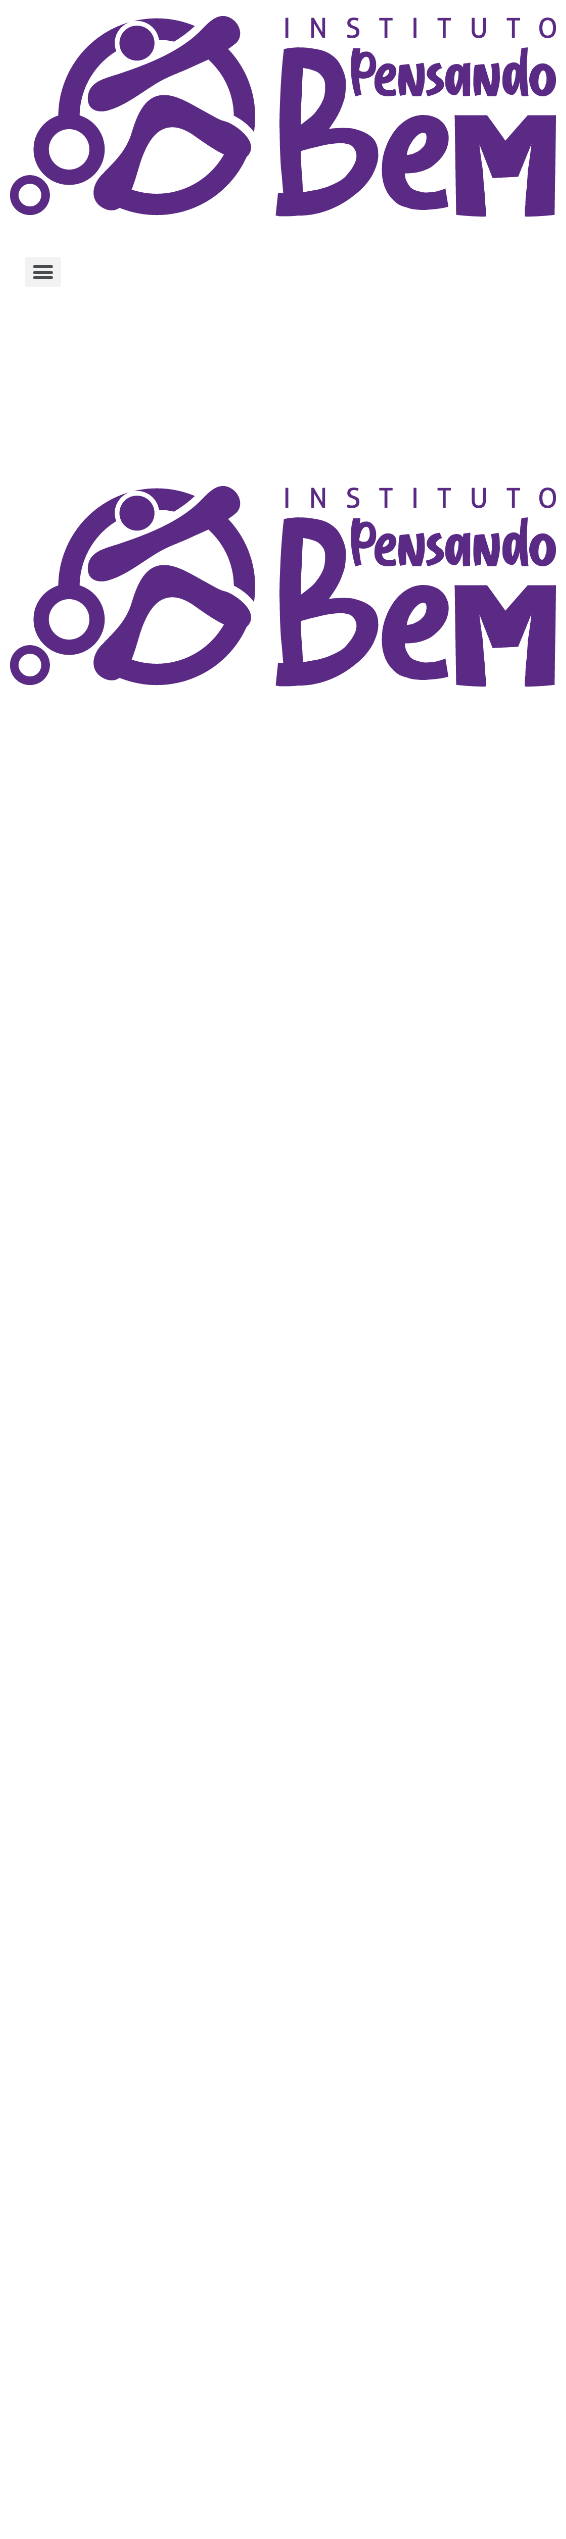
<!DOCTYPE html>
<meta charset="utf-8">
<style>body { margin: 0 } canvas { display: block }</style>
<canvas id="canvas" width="566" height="2539"></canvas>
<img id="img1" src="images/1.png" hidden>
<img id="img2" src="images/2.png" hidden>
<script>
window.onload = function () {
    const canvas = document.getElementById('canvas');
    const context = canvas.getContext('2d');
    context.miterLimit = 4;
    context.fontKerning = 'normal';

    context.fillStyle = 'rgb(255, 255, 255)';
    context.fillRect(0, 0, 566, 2539);
    context.drawImage(document.getElementById('img1'), 10, 16, 546, 201);
    context.fillStyle = 'rgb(242, 242, 242)';
    context.beginPath();
    context.roundRect(25, 257, 36, 30, 3);
    context.fill();
    context.fillStyle = 'rgb(73, 76, 79)';
    context.beginPath();
    context.roundRect(33, 271, 20, 3, 1.5);
    context.fill();
    context.beginPath();
    context.roundRect(33, 265, 20, 3, 1.5);
    context.fill();
    context.beginPath();
    context.roundRect(33, 276, 20, 3, 1.5);
    context.fill();
    context.drawImage(document.getElementById('img2'), 10, 486, 546, 201);
};
</script>
